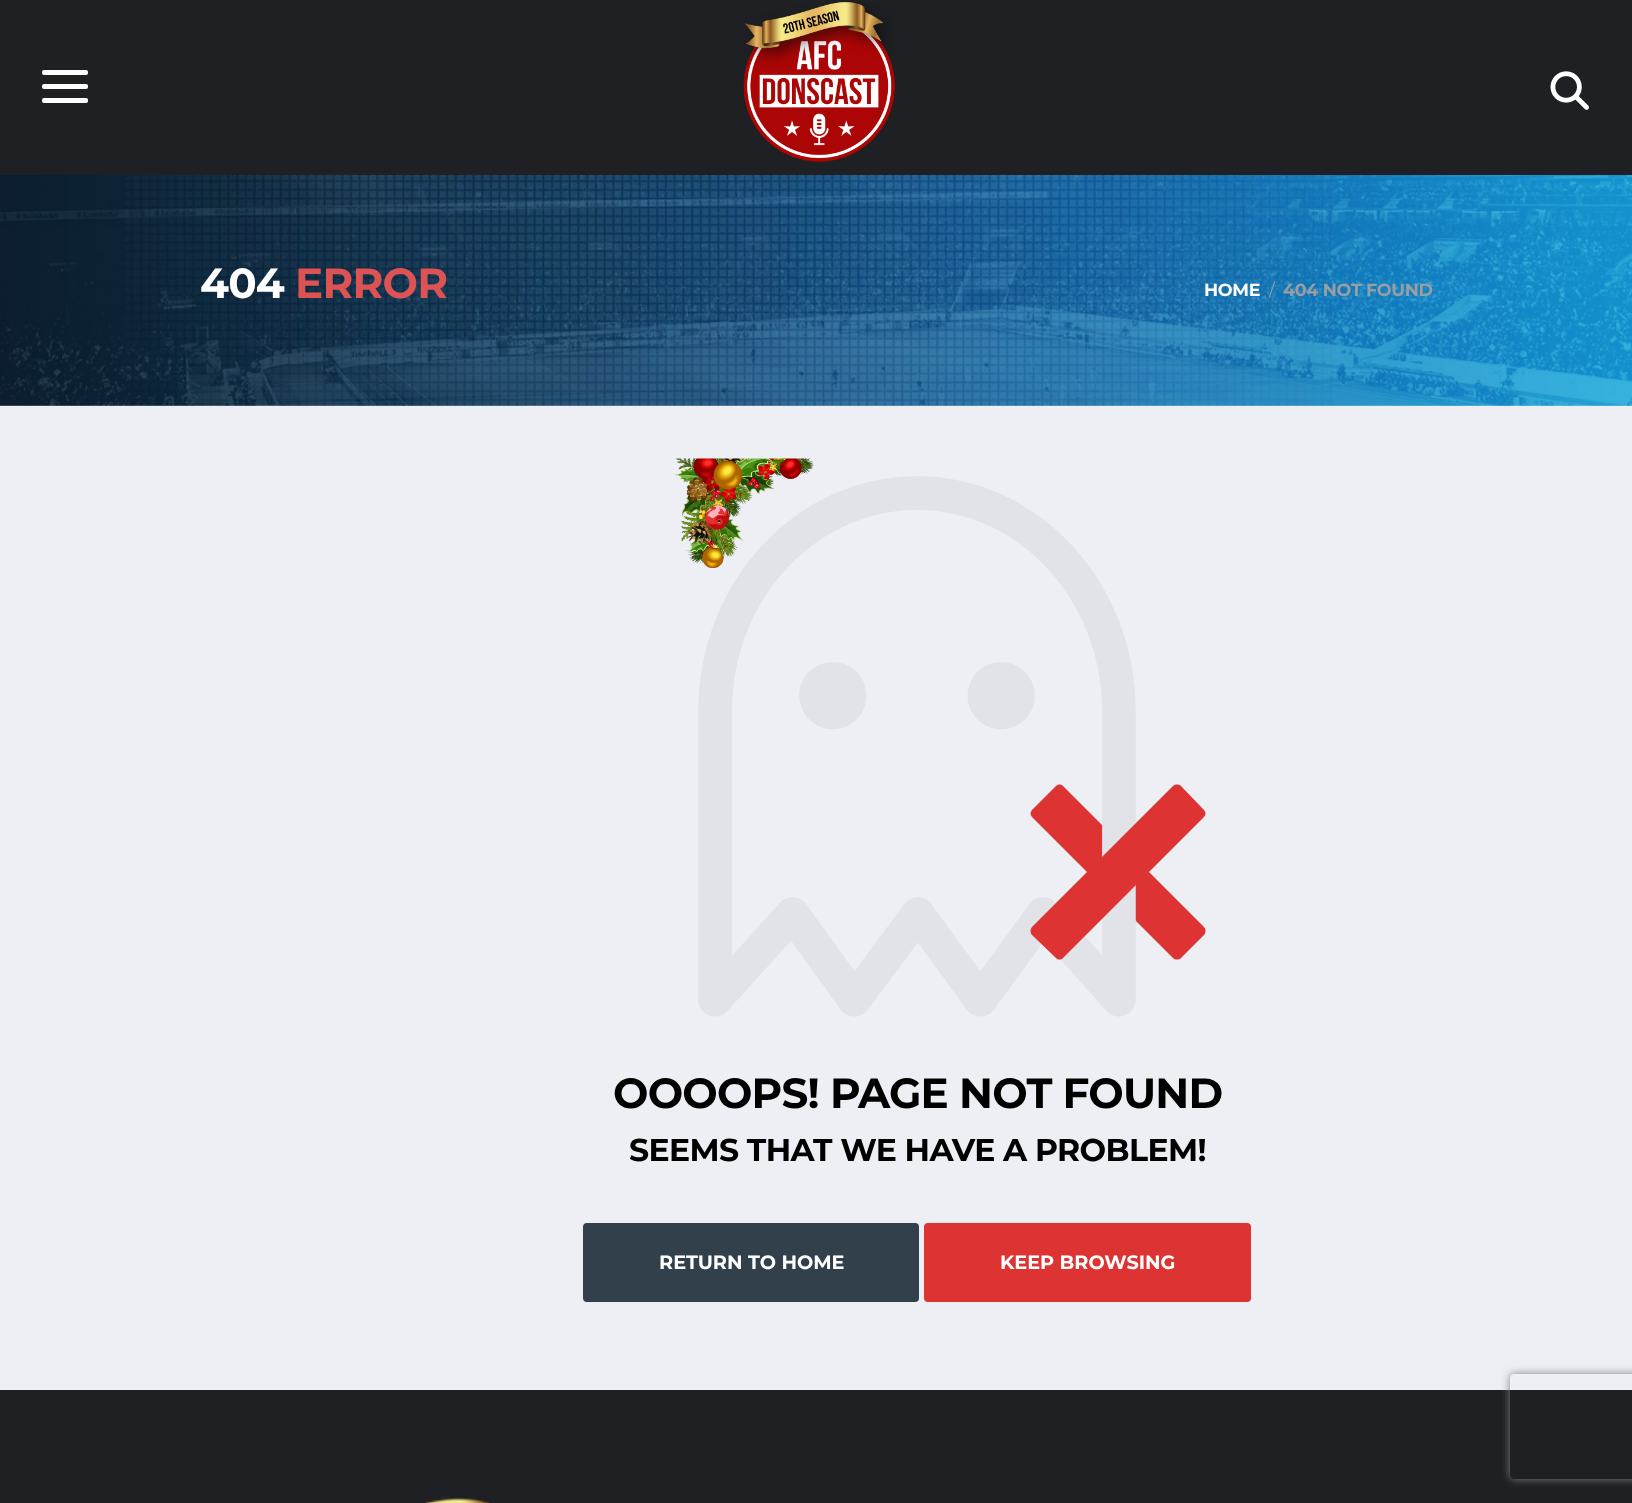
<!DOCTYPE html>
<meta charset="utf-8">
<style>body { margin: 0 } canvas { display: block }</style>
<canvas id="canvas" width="1632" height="1503"></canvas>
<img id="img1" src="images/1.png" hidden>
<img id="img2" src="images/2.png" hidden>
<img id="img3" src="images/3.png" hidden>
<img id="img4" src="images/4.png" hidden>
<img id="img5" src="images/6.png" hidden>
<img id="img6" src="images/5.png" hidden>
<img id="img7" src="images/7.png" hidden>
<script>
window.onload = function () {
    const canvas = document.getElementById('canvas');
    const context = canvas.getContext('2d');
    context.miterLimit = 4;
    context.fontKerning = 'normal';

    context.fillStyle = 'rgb(237, 239, 244)';
    context.fillRect(0, 0, 1632, 1503);
    context.fillStyle = 'rgb(30, 32, 36)';
    context.fillRect(0, 0, 1632, 175);
    context.drawImage(document.getElementById('img1'), 743, 2, 152, 160);
    context.fillStyle = 'rgb(255, 255, 255)';
    context.beginPath();
    context.roundRect(42, 70, 46, 5, 2);
    context.fill();
    context.beginPath();
    context.roundRect(42, 84, 46, 5, 2);
    context.fill();
    context.beginPath();
    context.roundRect(42, 98, 46, 5, 2);
    context.fill();
    context.drawImage(document.getElementById('img2'), 1550, 71, 39, 39);
    context.drawImage(document.getElementById('img3'), 0, 175, 1632, 231);
    context.drawImage(document.getElementById('img4'), 125, 175, 1209, 231);
    context.fillStyle = 'rgb(221, 51, 51)';
    context.beginPath();
    context.moveTo(1063, 786);
    context.lineTo(1204, 927);
    context.bezierCurveTo(1206, 929, 1206, 933, 1204, 935);
    context.lineTo(1181, 958);
    context.bezierCurveTo(1179, 960, 1175, 960, 1173, 958);
    context.lineTo(1032, 817);
    context.bezierCurveTo(1030, 815, 1030, 812, 1032, 810);
    context.lineTo(1056, 786);
    context.bezierCurveTo(1058, 784, 1061, 784, 1063, 786);
    context.closePath();
    context.fill();
    context.drawImage(document.getElementById('img5'), 698, 476, 438, 541);
    context.drawImage(document.getElementById('img6'), 674, 458, 140, 110);
    context.beginPath();
    context.moveTo(1032, 927);
    context.lineTo(1173, 786);
    context.bezierCurveTo(1175, 784, 1179, 784, 1181, 786);
    context.lineTo(1204, 810);
    context.bezierCurveTo(1206, 812, 1206, 815, 1204, 817);
    context.lineTo(1063, 958);
    context.bezierCurveTo(1061, 960, 1058, 960, 1056, 958);
    context.lineTo(1032, 935);
    context.bezierCurveTo(1030, 933, 1030, 929, 1032, 927);
    context.closePath();
    context.fill();
    context.fillStyle = 'rgb(49, 64, 75)';
    context.beginPath();
    context.roundRect(583, 1223, 336, 79, 4);
    context.fill();
    context.fillStyle = 'rgb(221, 51, 51)';
    context.beginPath();
    context.roundRect(924, 1223, 327, 79, 4);
    context.fill();
    context.fillStyle = 'rgb(30, 32, 36)';
    context.fillRect(0, 1390, 1632, 113);
    context.drawImage(document.getElementById('img7'), 424, 1496, 66, 7);
    context.save();
    context.beginPath();
    context.moveTo(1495, 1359);
    context.lineTo(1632, 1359);
    context.lineTo(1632, 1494);
    context.lineTo(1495, 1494);
    context.closePath();
    context.moveTo(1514, 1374);
    context.lineTo(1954, 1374);
    context.bezierCurveTo(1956, 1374, 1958, 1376, 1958, 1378);
    context.lineTo(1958, 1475);
    context.bezierCurveTo(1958, 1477, 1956, 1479, 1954, 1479);
    context.lineTo(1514, 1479);
    context.bezierCurveTo(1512, 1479, 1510, 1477, 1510, 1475);
    context.lineTo(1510, 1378);
    context.bezierCurveTo(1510, 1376, 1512, 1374, 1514, 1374);
    context.closePath();
    context.clip('evenodd');
    context.fillStyle = 'rgb(128, 128, 128)';
    context.filter = 'blur(4.5px)';
    context.beginPath();
    context.roundRect(1510, 1374, 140, 105, 4);
    context.fill();
    context.filter = 'none';
    context.restore();
    context.letterSpacing = '-0.8px';
    context.font = 'bold 42px Montserrat';
    context.fillStyle = 'rgb(255, 255, 255)';
    context.fillText('404', 200, 298);
    context.fillStyle = 'rgb(221, 82, 82)';
    context.fillText('ERROR', 295, 298);
    context.letterSpacing = '-0.3px';
    context.font = 'bold 17.5px Montserrat';
    context.fillStyle = 'rgb(255, 255, 255)';
    context.fillText('HOME', 1204, 296);
    context.font = '17.5px Montserrat';
    context.fillStyle = 'rgb(154, 157, 162)';
    context.fillText('/', 1269, 296);
    context.font = 'bold 17.5px Montserrat';
    context.fillText('404 NOT FOUND', 1283, 296);
    context.letterSpacing = '-0.8px';
    context.font = 'bold 42px Montserrat';
    context.fillStyle = 'rgb(0, 0, 0)';
    context.fillText('OOOOPS! PAGE NOT FOUND', 613, 1108);
    context.letterSpacing = '-0.6px';
    context.font = 'bold 31.5px Montserrat';
    context.fillText('SEEMS THAT WE HAVE A PROBLEM!', 629, 1161);
    context.letterSpacing = '0px';
    context.font = 'bold 19.25px Montserrat';
    context.fillStyle = 'rgb(255, 255, 255)';
    context.fillText('RETURN TO HOME', 659, 1269);
    context.fillText('KEEP BROWSING', 1000, 1269);
};
</script>
